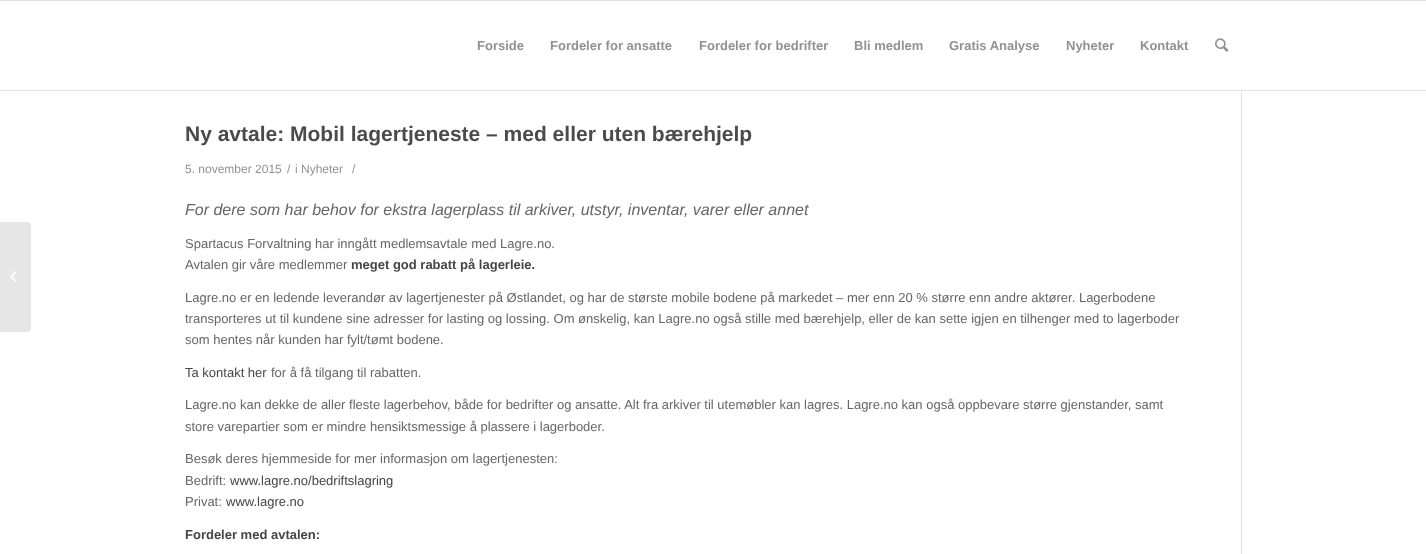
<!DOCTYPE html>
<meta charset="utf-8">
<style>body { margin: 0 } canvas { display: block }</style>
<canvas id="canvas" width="1426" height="554"></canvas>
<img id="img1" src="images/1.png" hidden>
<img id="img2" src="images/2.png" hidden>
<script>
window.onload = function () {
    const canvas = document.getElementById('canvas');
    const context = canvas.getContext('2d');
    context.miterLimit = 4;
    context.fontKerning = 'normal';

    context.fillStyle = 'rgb(255, 255, 255)';
    context.fillRect(0, 0, 1426, 554);
    context.fillStyle = 'rgb(230, 230, 230)';
    context.beginPath();
    context.roundRect(0, 222, 31, 110, [0, 4, 4, 0]);
    context.fill();
    context.drawImage(document.getElementById('img1'), 10, 271, 7, 11);
    context.fillStyle = 'rgb(225, 225, 225)';
    context.fillRect(0, 0, 1426, 1);
    context.fillRect(0, 90, 1426, 1);
    context.drawImage(document.getElementById('img2'), 1215, 38, 14, 14);
    context.fillRect(1241, 91, 1, 463);
    context.font = 'bold 13px Liberation Sans';
    context.fillStyle = 'rgb(145, 145, 145)';
    context.fillText('Forside', 477, 50);
    context.fillText('Fordeler for ansatte', 550, 50);
    context.fillText('Fordeler for bedrifter', 699, 50);
    context.fillText('Bli medlem', 854, 50);
    context.fillText('Gratis Analyse', 949, 50);
    context.fillText('Nyheter', 1066, 50);
    context.fillText('Kontakt', 1140, 50);
    context.font = 'bold 21px Liberation Sans';
    context.fillStyle = 'rgb(75, 75, 75)';
    context.fillText('Ny avtale: Mobil lagertjeneste – med eller uten bærehjelp', 185, 141);
    context.font = '12px Liberation Sans';
    context.fillStyle = 'rgb(145, 145, 145)';
    context.fillText('5. november 2015', 185, 173);
    context.fillText('/', 287, 173);
    context.fillText('i Nyheter', 295, 173);
    context.fillText('/', 352, 173);
    context.font = 'italic 16px Liberation Sans';
    context.fillStyle = 'rgb(102, 102, 102)';
    context.fillText('For dere som har behov for ekstra lagerplass til arkiver, utstyr, inventar, varer eller annet', 185, 215);
    context.font = '13px Liberation Sans';
    context.fillText('Spartacus Forvaltning har inngått medlemsavtale med Lagre.no.', 185, 248);
    context.fillText('Avtalen gir våre medlemmer', 185, 269);
    context.font = 'bold 13px Liberation Sans';
    context.fillStyle = 'rgb(69, 69, 69)';
    context.fillText('meget god rabatt på lagerleie.', 351, 269);
    context.font = '13px Liberation Sans';
    context.fillStyle = 'rgb(102, 102, 102)';
    context.fillText('Lagre.no er en ledende leverandør av lagertjenester på Østlandet, og har de største mobile bodene på markedet – mer enn 20 % større enn andre aktører. Lagerbodene', 185, 302);
    context.fillText('transporteres ut til kundene sine adresser for lasting og lossing. Om ønskelig, kan Lagre.no også stille med bærehjelp, eller de kan sette igjen en tilhenger med to lagerboder', 185, 323);
    context.fillText('som hentes når kunden har fylt/tømt bodene.', 185, 344);
    context.fillStyle = 'rgb(69, 69, 69)';
    context.fillText('Ta kontakt her', 185, 377);
    context.fillStyle = 'rgb(102, 102, 102)';
    context.fillText('for å få tilgang til rabatten.', 271, 377);
    context.fillText('Lagre.no kan dekke de aller fleste lagerbehov, både for bedrifter og ansatte. Alt fra arkiver til utemøbler kan lagres. Lagre.no kan også oppbevare større gjenstander, samt', 185, 409);
    context.fillText('store varepartier som er mindre hensiktsmessige å plassere i lagerboder.', 185, 431);
    context.fillText('Besøk deres hjemmeside for mer informasjon om lagertjenesten:', 185, 463);
    context.fillText('Bedrift:', 185, 485);
    context.fillStyle = 'rgb(69, 69, 69)';
    context.fillText('www.lagre.no/bedriftslagring', 230, 485);
    context.fillStyle = 'rgb(102, 102, 102)';
    context.fillText('Privat:', 185, 506);
    context.fillStyle = 'rgb(69, 69, 69)';
    context.fillText('www.lagre.no', 226, 506);
    context.font = 'bold 13px Liberation Sans';
    context.fillText('Fordeler med avtalen:', 185, 539);
};
</script>
